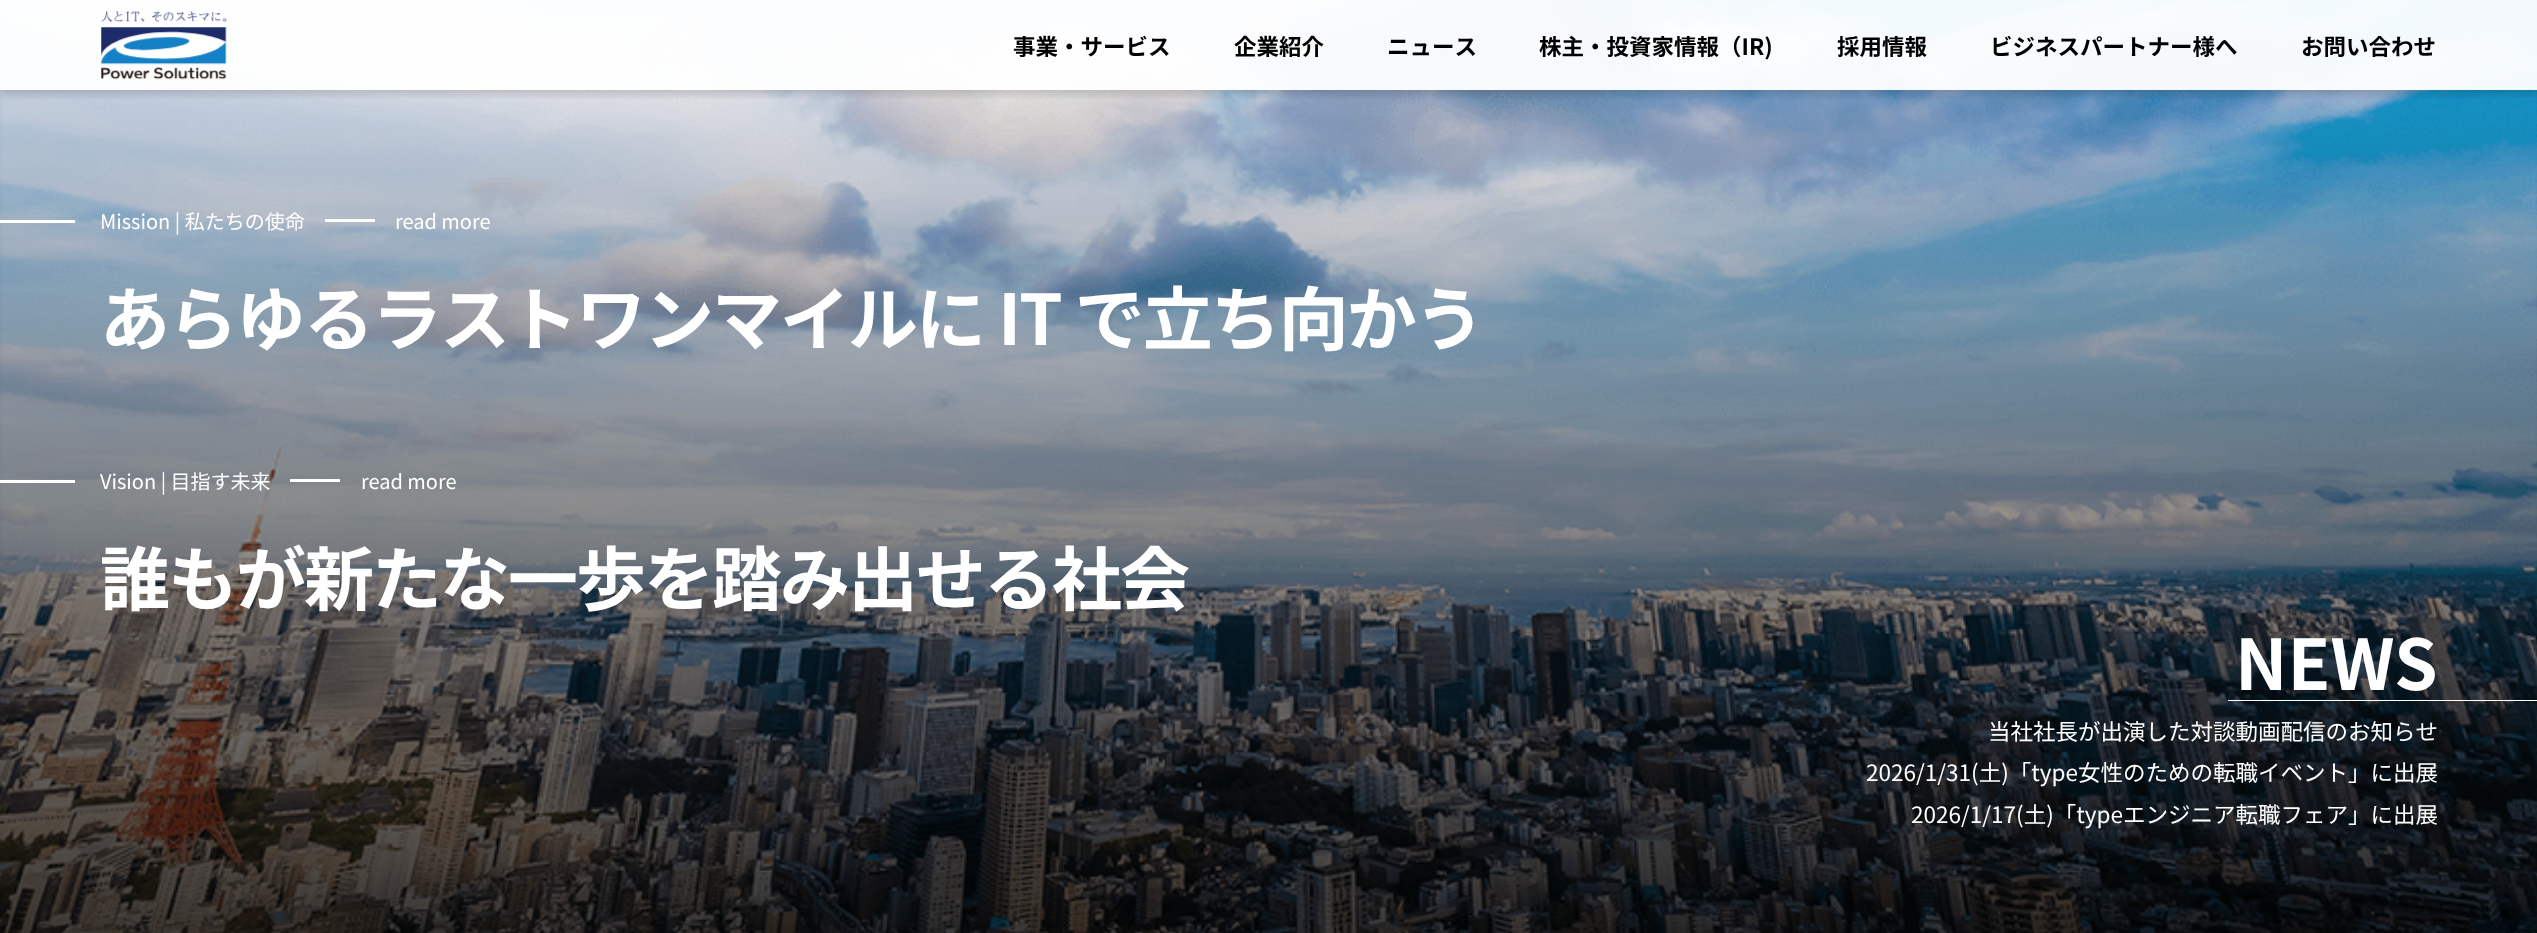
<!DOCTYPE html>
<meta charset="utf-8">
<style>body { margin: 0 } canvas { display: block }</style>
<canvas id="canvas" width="2537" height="933"></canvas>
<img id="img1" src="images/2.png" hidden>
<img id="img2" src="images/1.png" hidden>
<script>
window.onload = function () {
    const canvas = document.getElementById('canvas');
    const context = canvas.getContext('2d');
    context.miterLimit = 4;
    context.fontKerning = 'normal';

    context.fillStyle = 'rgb(255, 255, 255)';
    context.fillRect(0, 0, 2537, 933);
    context.drawImage(document.getElementById('img1'), 0, 0, 2537, 933);
    context.save();
    context.beginPath();
    context.rect(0, 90, 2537, 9);
    context.clip();
    context.fillStyle = 'rgba(0, 0, 0, 0.16)';
    context.filter = 'blur(4px)';
    context.beginPath();
    context.rect(0, 4, 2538, 90);
    context.fill();
    context.filter = 'none';
    context.restore();
    context.fillStyle = 'rgba(255, 255, 255, 0.95)';
    context.fillRect(0, 0, 2537, 90);
    context.drawImage(document.getElementById('img2'), 101, 11, 126, 69);
    context.fillStyle = 'rgb(255, 255, 255)';
    context.fillRect(0, 220, 75, 3);
    context.fillRect(325, 219, 50, 3);
    context.fillRect(0, 480, 75, 3);
    context.fillRect(290, 479, 50, 3);
    context.fillRect(2228, 700, 309, 1);
    context.font = 'bold 22.5px Noto Sans JP';
    context.fillStyle = 'rgb(0, 0, 0)';
    context.fillText('事業・サービス', 1013, 55);
    context.fillText('企業紹介', 1234, 55);
    context.fillText('ニュース', 1387, 55);
    context.fillText('株主・投資家情報（IR)', 1539, 55);
    context.fillText('採用情報', 1837, 55);
    context.fillText('ビジネスパートナー様へ', 1990, 55);
    context.fillText('お問い合わせ', 2301, 55);
    context.font = '20px Noto Sans JP';
    context.fillStyle = 'rgb(255, 255, 255)';
    context.fillText('Mission | 私たちの使命', 100, 229);
    context.fillText('read more', 395, 229);
    context.letterSpacing = '-2px';
    context.font = 'bold 70px Noto Sans JP';
    context.fillText('あらゆるラストワンマイルに IT で立ち向かう', 100, 345);
    context.letterSpacing = '0px';
    context.font = '20px Noto Sans JP';
    context.fillText('Vision | 目指す未来', 100, 489);
    context.fillText('read more', 361, 489);
    context.letterSpacing = '-2px';
    context.font = 'bold 70px Noto Sans JP';
    context.fillText('誰もが新たな一歩を踏み出せる社会', 100, 605);
    context.letterSpacing = '0px';
    context.fillText('NEWS', 2235, 690);
    context.font = '22.5px Noto Sans JP';
    context.fillText('当社社長が出演した対談動画配信のお知らせ', 1988, 740);
    context.fillText('2026/1/31(土)「type女性のための転職イベント」に出展', 1866, 781);
    context.fillText('2026/1/17(土)「typeエンジニア転職フェア」に出展', 1911, 823);
};
</script>
